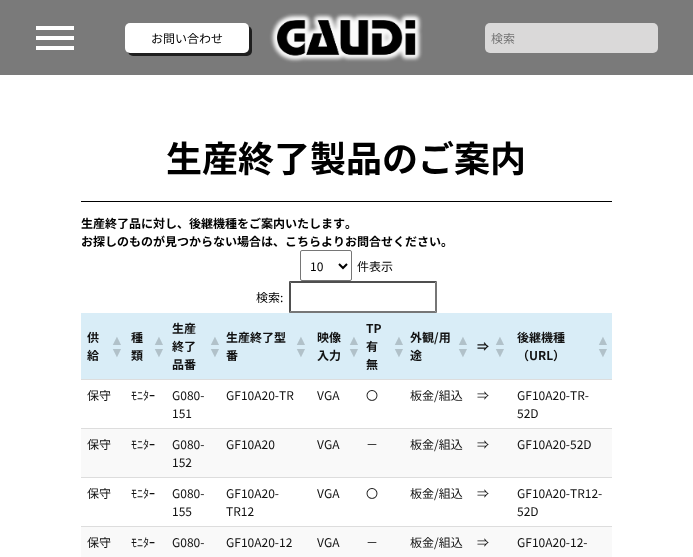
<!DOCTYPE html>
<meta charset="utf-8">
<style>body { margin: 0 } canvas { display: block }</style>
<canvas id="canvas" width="693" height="557"></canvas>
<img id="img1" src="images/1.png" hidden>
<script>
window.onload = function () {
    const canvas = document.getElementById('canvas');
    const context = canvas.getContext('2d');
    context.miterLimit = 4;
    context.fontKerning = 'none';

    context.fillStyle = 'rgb(255, 255, 255)';
    context.fillRect(0, 0, 693, 557);
    context.fillStyle = 'rgb(122, 122, 122)';
    context.fillRect(0, 0, 693, 75);
    context.fillStyle = 'rgb(255, 255, 255)';
    context.fillRect(36, 26, 38, 4);
    context.fillRect(36, 36, 38, 4);
    context.fillRect(36, 46, 38, 4);
    context.fillStyle = 'rgb(31, 31, 31)';
    context.filter = 'blur(0.5px)';
    context.beginPath();
    context.roundRect(128, 26, 124, 30, 5);
    context.fill();
    context.filter = 'none';
    context.fillStyle = 'rgb(255, 255, 255)';
    context.beginPath();
    context.roundRect(125, 23, 124, 30, 5);
    context.fill();
    context.drawImage(document.getElementById('img1'), 269, 13, 154, 50);
    context.fillStyle = 'rgb(218, 217, 217)';
    context.beginPath();
    context.roundRect(485, 23, 173, 30, 5);
    context.fill();
    context.fillStyle = 'rgb(0, 0, 0)';
    context.fillRect(81, 201, 531, 1);
    context.beginPath();
    context.roundRect(300.5, 250.5, 51, 30, 1.5);
    context.strokeStyle = 'rgb(118, 118, 118)';
    context.stroke();
    context.beginPath();
    context.moveTo(339, 264);
    context.lineTo(343, 268);
    context.lineTo(347, 264);
    context.strokeStyle = 'rgb(0, 0, 0)';
    context.lineWidth = 2;
    context.stroke();
    context.fillStyle = 'rgb(79, 79, 79)';
    context.beginPath();
    context.moveTo(289, 281);
    context.lineTo(437, 281);
    context.lineTo(435, 283);
    context.lineTo(291, 283);
    context.closePath();
    context.fill();
    context.fillStyle = 'rgb(118, 118, 118)';
    context.beginPath();
    context.moveTo(437, 281);
    context.lineTo(437, 313);
    context.lineTo(435, 311);
    context.lineTo(435, 283);
    context.closePath();
    context.fill();
    context.beginPath();
    context.moveTo(437, 313);
    context.lineTo(289, 313);
    context.lineTo(291, 311);
    context.lineTo(435, 311);
    context.closePath();
    context.fill();
    context.fillStyle = 'rgb(79, 79, 79)';
    context.beginPath();
    context.moveTo(289, 313);
    context.lineTo(289, 281);
    context.lineTo(291, 283);
    context.lineTo(291, 311);
    context.closePath();
    context.fill();
    context.fillStyle = 'rgb(217, 237, 247)';
    context.fillRect(81, 313, 531, 66);
    context.fillStyle = 'rgb(221, 221, 221)';
    context.fillRect(81, 379, 531, 1);
    context.fillStyle = 'rgb(249, 249, 249)';
    context.fillRect(81, 429, 531, 48);
    context.fillStyle = 'rgb(221, 221, 221)';
    context.fillRect(81, 428, 531, 1);
    context.fillRect(81, 477, 531, 1);
    context.fillStyle = 'rgb(249, 249, 249)';
    context.fillRect(81, 527, 531, 30);
    context.fillStyle = 'rgb(221, 221, 221)';
    context.fillRect(81, 526, 531, 1);
    context.font = '12px Noto Sans JP';
    context.fillStyle = 'rgb(0, 0, 0)';
    context.fillText('お問い合わせ', 151, 43);
    context.fillStyle = 'rgb(117, 117, 117)';
    context.fillText('検索', 491, 43);
    context.font = 'bold 36px Noto Sans JP';
    context.fillStyle = 'rgb(0, 0, 0)';
    context.fillText('生産終了製品のご案内', 166, 172);
    context.font = 'bold 12px Noto Sans JP';
    context.fillText('生産終了品に対し、後継機種をご案内いたします。', 81, 228);
    context.fillText('お探しのものが見つからない場合は、こちらよりお問合せください。', 81, 246);
    context.font = '12px Noto Sans JP';
    context.fillText('10', 310, 271);
    context.fillText('件表示', 357, 271);
    context.fillText('検索:', 256, 302);
    context.font = 'bold 12px Noto Sans JP';
    context.fillStyle = 'rgb(17, 17, 17)';
    context.fillText('供', 87, 342);
    context.fillText('給', 87, 360);
    context.font = 'bold 14px Liberation Sans';
    context.fillStyle = 'rgb(177, 193, 201)';
    context.fillText('▲', 110, 345);
    context.fillText('▼', 110, 357);
    context.font = 'bold 12px Noto Sans JP';
    context.fillStyle = 'rgb(17, 17, 17)';
    context.fillText('種', 131, 342);
    context.fillText('類', 131, 360);
    context.font = 'bold 14px Liberation Sans';
    context.fillStyle = 'rgb(177, 193, 201)';
    context.fillText('▲', 152, 345);
    context.fillText('▼', 152, 357);
    context.font = 'bold 12px Noto Sans JP';
    context.fillStyle = 'rgb(17, 17, 17)';
    context.fillText('生産', 172, 333);
    context.fillText('終了', 172, 351);
    context.fillText('品番', 172, 369);
    context.font = 'bold 14px Liberation Sans';
    context.fillStyle = 'rgb(177, 193, 201)';
    context.fillText('▲', 208, 345);
    context.fillText('▼', 208, 357);
    context.font = 'bold 12px Noto Sans JP';
    context.fillStyle = 'rgb(17, 17, 17)';
    context.fillText('生産終了型', 226, 342);
    context.fillText('番', 226, 360);
    context.font = 'bold 14px Liberation Sans';
    context.fillStyle = 'rgb(177, 193, 201)';
    context.fillText('▲', 294, 345);
    context.fillText('▼', 294, 357);
    context.font = 'bold 12px Noto Sans JP';
    context.fillStyle = 'rgb(17, 17, 17)';
    context.fillText('映像', 317, 342);
    context.fillText('入力', 317, 360);
    context.font = 'bold 14px Liberation Sans';
    context.fillStyle = 'rgb(177, 193, 201)';
    context.fillText('▲', 347, 345);
    context.fillText('▼', 347, 357);
    context.font = 'bold 12px Noto Sans JP';
    context.fillStyle = 'rgb(17, 17, 17)';
    context.fillText('TP', 366, 333);
    context.fillText('有', 366, 351);
    context.fillText('無', 366, 369);
    context.font = 'bold 14px Liberation Sans';
    context.fillStyle = 'rgb(177, 193, 201)';
    context.fillText('▲', 392, 345);
    context.fillText('▼', 392, 357);
    context.font = 'bold 12px Noto Sans JP';
    context.fillStyle = 'rgb(17, 17, 17)';
    context.fillText('外観/用', 410, 342);
    context.fillText('途', 410, 360);
    context.font = 'bold 14px Liberation Sans';
    context.fillStyle = 'rgb(177, 193, 201)';
    context.fillText('▲', 456, 345);
    context.fillText('▼', 456, 357);
    context.font = 'bold 12px Noto Sans JP';
    context.fillStyle = 'rgb(17, 17, 17)';
    context.fillText('⇒', 477, 351);
    context.font = 'bold 14px Liberation Sans';
    context.fillStyle = 'rgb(177, 193, 201)';
    context.fillText('▲', 493, 345);
    context.fillText('▼', 493, 357);
    context.font = 'bold 12px Noto Sans JP';
    context.fillStyle = 'rgb(17, 17, 17)';
    context.fillText('後継機種', 517, 342);
    context.fillText('（URL）', 517, 360);
    context.font = 'bold 14px Liberation Sans';
    context.fillStyle = 'rgb(177, 193, 201)';
    context.fillText('▲', 596, 345);
    context.fillText('▼', 596, 357);
    context.font = '12px Noto Sans JP';
    context.fillStyle = 'rgb(17, 17, 17)';
    context.fillText('保守', 87, 400);
    context.fillText('ﾓﾆﾀｰ', 131, 400);
    context.fillText('G080-', 172, 400);
    context.fillText('151', 172, 418);
    context.fillText('GF10A20-TR', 226, 400);
    context.fillText('VGA', 317, 400);
    context.fillText('〇', 366, 400);
    context.fillText('板金/組込', 410, 400);
    context.fillText('⇒', 477, 400);
    context.fillText('GF10A20-TR-', 517, 400);
    context.fillText('52D', 517, 418);
    context.fillText('保守', 87, 449);
    context.fillText('ﾓﾆﾀｰ', 131, 449);
    context.fillText('G080-', 172, 449);
    context.fillText('152', 172, 467);
    context.fillText('GF10A20', 226, 449);
    context.fillText('VGA', 317, 449);
    context.fillText('－', 366, 449);
    context.fillText('板金/組込', 410, 449);
    context.fillText('⇒', 477, 449);
    context.fillText('GF10A20-52D', 517, 449);
    context.fillText('保守', 87, 498);
    context.fillText('ﾓﾆﾀｰ', 131, 498);
    context.fillText('G080-', 172, 498);
    context.fillText('155', 172, 516);
    context.fillText('GF10A20-', 226, 498);
    context.fillText('TR12', 226, 516);
    context.fillText('VGA', 317, 498);
    context.fillText('〇', 366, 498);
    context.fillText('板金/組込', 410, 498);
    context.fillText('⇒', 477, 498);
    context.fillText('GF10A20-TR12-', 517, 498);
    context.fillText('52D', 517, 516);
    context.fillText('保守', 87, 547);
    context.fillText('ﾓﾆﾀｰ', 131, 547);
    context.fillText('G080-', 172, 547);
    context.fillText('GF10A20-12', 226, 547);
    context.fillText('VGA', 317, 547);
    context.fillText('－', 366, 547);
    context.fillText('板金/組込', 410, 547);
    context.fillText('⇒', 477, 547);
    context.fillText('GF10A20-12-', 517, 547);
};
</script>
